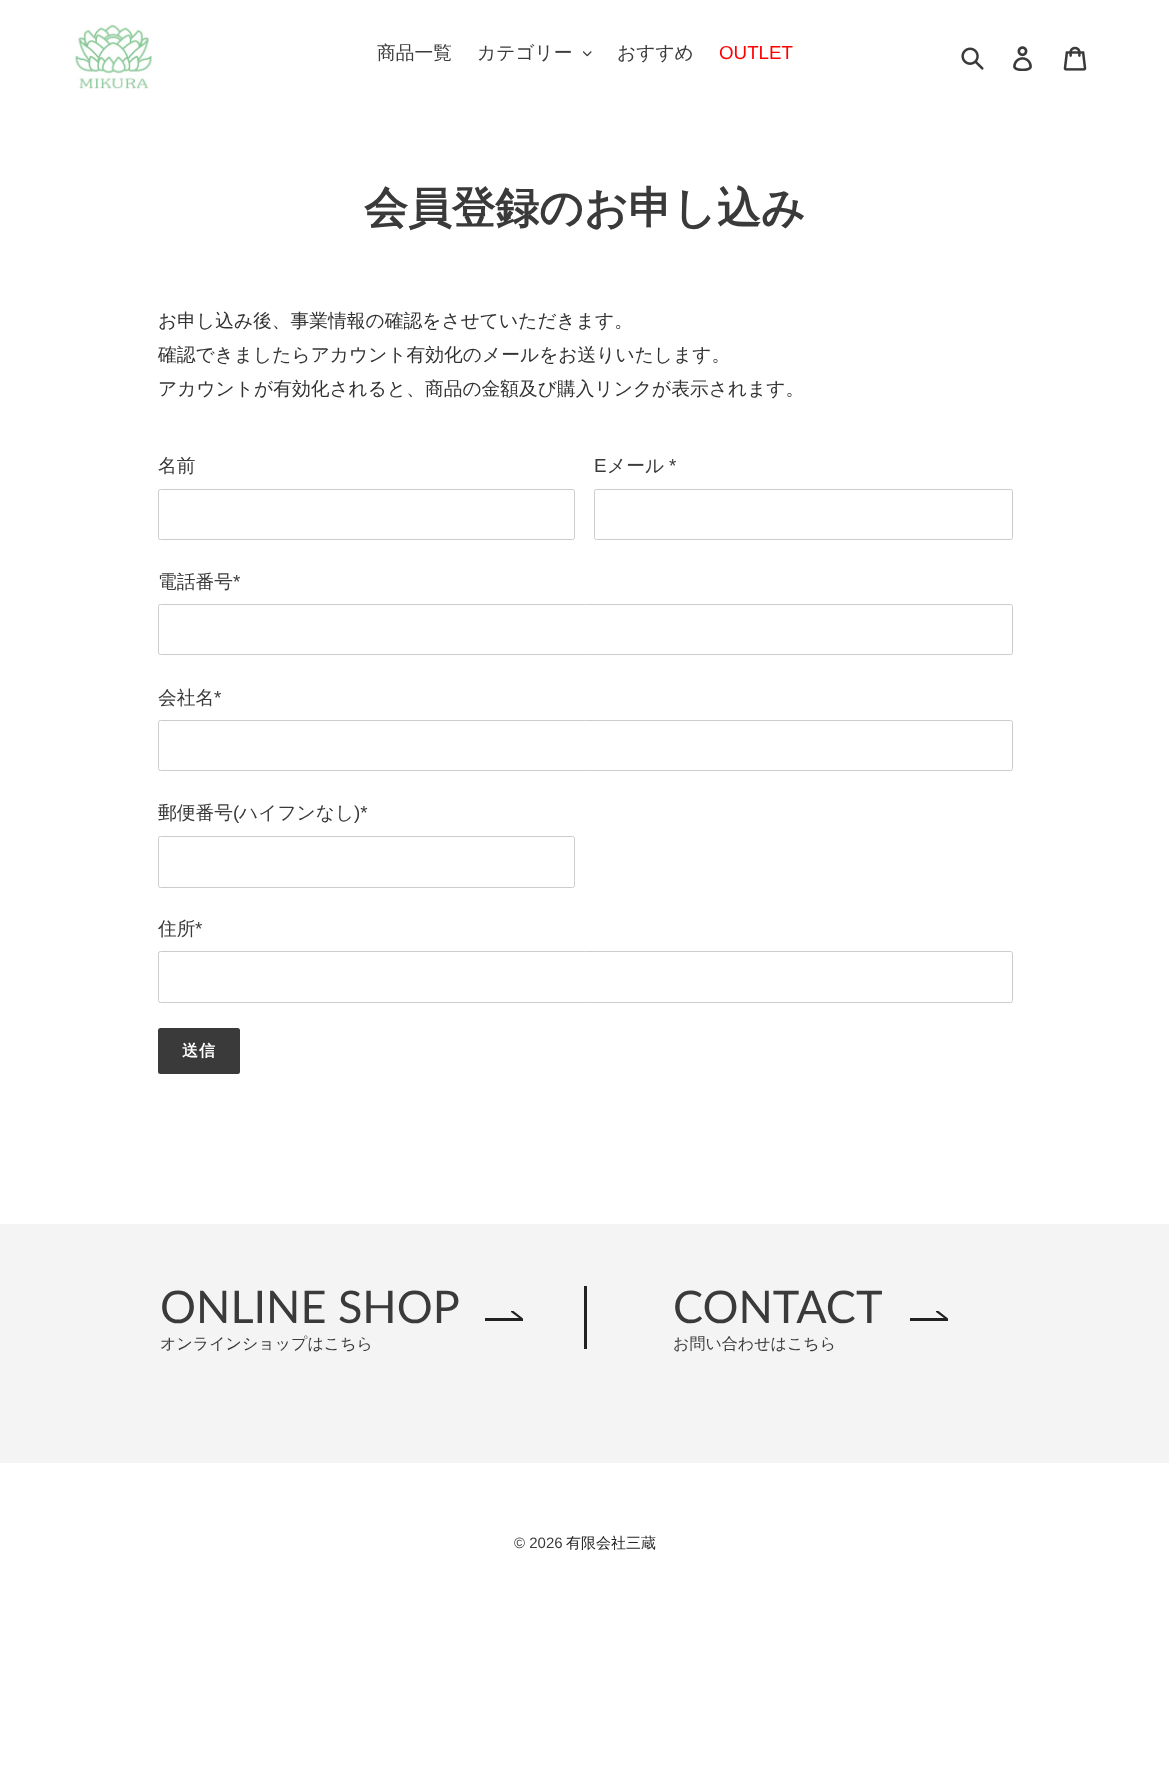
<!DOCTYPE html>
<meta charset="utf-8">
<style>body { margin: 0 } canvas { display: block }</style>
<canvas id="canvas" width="1169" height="1788"></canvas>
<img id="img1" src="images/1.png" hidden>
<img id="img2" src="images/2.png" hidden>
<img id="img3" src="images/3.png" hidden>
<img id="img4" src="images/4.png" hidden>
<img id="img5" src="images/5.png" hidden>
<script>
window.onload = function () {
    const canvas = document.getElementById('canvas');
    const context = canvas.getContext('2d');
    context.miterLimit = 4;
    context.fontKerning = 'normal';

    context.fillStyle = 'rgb(255, 255, 255)';
    context.fillRect(0, 0, 1169, 1788);
    context.drawImage(document.getElementById('img1'), 75, 24, 78, 65);
    context.drawImage(document.getElementById('img2'), 583, 51, 9, 6);
    context.drawImage(document.getElementById('img3'), 961, 47, 23, 23);
    context.drawImage(document.getElementById('img4'), 1013, 46, 19, 25);
    context.drawImage(document.getElementById('img5'), 1063, 46, 24, 25);
    context.beginPath();
    context.roundRect(158.5, 489.5, 416, 50, 2);
    context.strokeStyle = 'rgb(204, 204, 204)';
    context.stroke();
    context.beginPath();
    context.roundRect(594.5, 489.5, 418, 50, 2);
    context.stroke();
    context.beginPath();
    context.roundRect(158.5, 604.5, 854, 50, 2);
    context.stroke();
    context.beginPath();
    context.roundRect(158.5, 720.5, 854, 50, 2);
    context.stroke();
    context.beginPath();
    context.roundRect(158.5, 836.5, 416, 51, 2);
    context.stroke();
    context.beginPath();
    context.roundRect(158.5, 951.5, 854, 51, 2);
    context.stroke();
    context.fillStyle = 'rgb(58, 58, 58)';
    context.beginPath();
    context.roundRect(158, 1028, 82, 46, 2.5);
    context.fill();
    context.fillStyle = 'rgb(244, 244, 244)';
    context.fillRect(0, 1224, 1169, 239);
    context.save();
    context.beginPath();
    context.rect(485, 1311, 38, 10);
    context.clip();
    context.fillStyle = 'rgb(34, 34, 34)';
    context.beginPath();
    context.moveTo(526, 1321);
    context.lineTo(485, 1321);
    context.lineTo(485, 1318);
    context.lineTo(519, 1318);
    context.lineTo(511, 1312);
    context.lineTo(511, 1309);
    context.closePath();
    context.fill();
    context.restore();
    context.fillStyle = 'rgb(34, 34, 34)';
    context.fillRect(584, 1286, 3, 63);
    context.save();
    context.beginPath();
    context.rect(910, 1311, 38, 10);
    context.clip();
    context.beginPath();
    context.moveTo(951, 1321);
    context.lineTo(910, 1321);
    context.lineTo(910, 1318);
    context.lineTo(944, 1318);
    context.lineTo(936, 1312);
    context.lineTo(936, 1309);
    context.closePath();
    context.fill();
    context.restore();
    context.font = '500 18.75px WenQuanYi Zen Hei';
    context.fillStyle = 'rgb(58, 58, 58)';
    context.fillText('商品一覧', 377, 59);
    context.fillText('カテゴリー', 477, 59);
    context.fillText('おすすめ', 617, 59);
    context.font = '18.75px Liberation Sans';
    context.fillStyle = 'rgb(255, 0, 0)';
    context.fillText('OUTLET', 719, 59);
    context.font = 'bold 43.75px WenQuanYi Zen Hei';
    context.fillStyle = 'rgb(58, 58, 58)';
    context.fillText('会員登録のお申し込み', 364, 223);
    context.font = '500 18.75px WenQuanYi Zen Hei';
    context.fillStyle = 'rgb(51, 50, 50)';
    context.fillText('お申し込み後、事業情報の確認をさせていただきます。', 158, 327);
    context.fillText('確認できましたらアカウント有効化のメールをお送りいたします。', 158, 361);
    context.fillText('アカウントが有効化されると、商品の金額及び購入リンクが表示されます。', 158, 395);
    context.fillStyle = 'rgb(58, 58, 58)';
    context.fillText('名前', 158, 472);
    context.font = '18.75px Liberation Sans';
    context.fillText('E', 594, 472);
    context.font = '500 18.75px WenQuanYi Zen Hei';
    context.fillText('メール', 607, 472);
    context.font = '18.75px Liberation Sans';
    context.fillText('*', 669, 472);
    context.font = '500 18.75px WenQuanYi Zen Hei';
    context.fillText('電話番号', 158, 588);
    context.font = '18.75px Liberation Sans';
    context.fillText('*', 233, 588);
    context.font = '500 18.75px WenQuanYi Zen Hei';
    context.fillText('会社名', 158, 704);
    context.font = '18.75px Liberation Sans';
    context.fillText('*', 214, 704);
    context.font = '500 18.75px WenQuanYi Zen Hei';
    context.fillText('郵便番号', 158, 819);
    context.font = '18.75px Liberation Sans';
    context.fillText('(', 233, 819);
    context.font = '500 18.75px WenQuanYi Zen Hei';
    context.fillText('ハイフンなし', 239, 819);
    context.font = '18.75px Liberation Sans';
    context.fillText(')*', 354, 819);
    context.font = '500 18.75px WenQuanYi Zen Hei';
    context.fillText('住所', 158, 935);
    context.font = '18.75px Liberation Sans';
    context.fillText('*', 195, 935);
    context.letterSpacing = '1px';
    context.font = 'bold 16px WenQuanYi Zen Hei';
    context.fillStyle = 'rgb(255, 255, 255)';
    context.fillText('送信', 182, 1056);
    context.letterSpacing = '0px';
    context.font = '45px Lato';
    context.fillStyle = 'rgb(58, 58, 58)';
    context.fillText('ONLINE SHOP', 160, 1323);
    context.font = '500 16px WenQuanYi Zen Hei';
    context.fillText('オンラインショップはこちら', 160, 1349);
    context.font = '45px Lato';
    context.fillText('CONTACT', 673, 1323);
    context.font = '500 16px WenQuanYi Zen Hei';
    context.fillText('お問い合わせはこちら', 673, 1349);
    context.font = '15px Liberation Sans';
    context.fillText('© 2026', 514, 1548);
    context.font = '500 15px WenQuanYi Zen Hei';
    context.fillStyle = 'rgb(34, 34, 34)';
    context.fillText('有限会社三蔵', 566, 1548);
};
</script>
